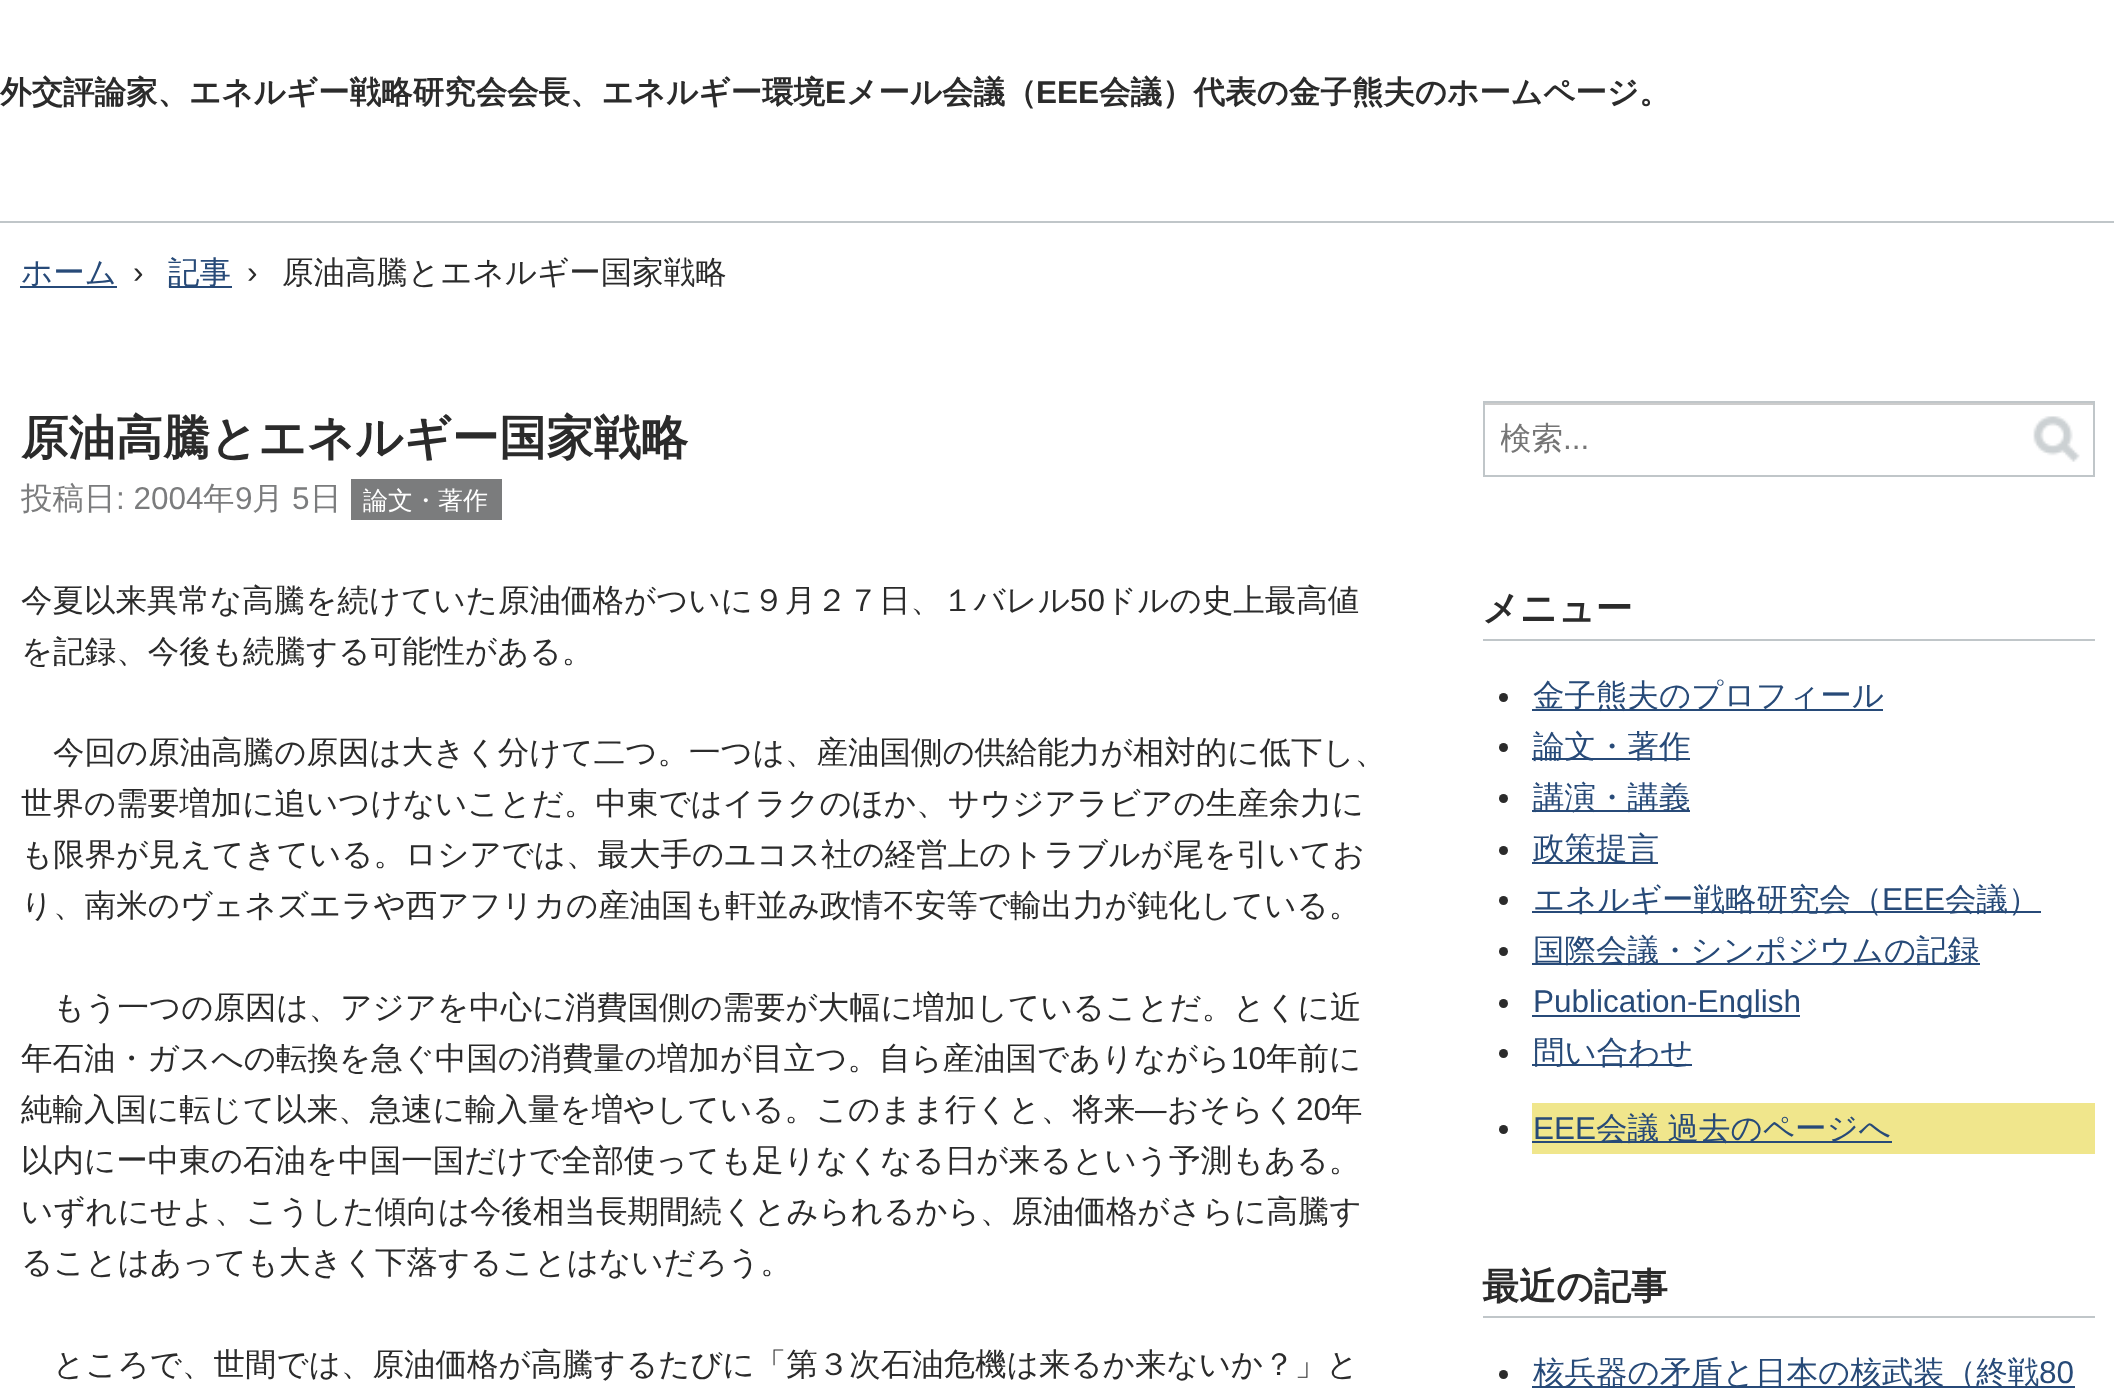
<!DOCTYPE html>
<meta charset="utf-8">
<style>body { margin: 0 } canvas { display: block }</style>
<canvas id="canvas" width="2114" height="1388"></canvas>
<img id="img1" src="images/1.png" hidden>
<script>
window.onload = function () {
    const canvas = document.getElementById('canvas');
    const context = canvas.getContext('2d');
    context.miterLimit = 4;
    context.fontKerning = 'normal';

    context.fillStyle = 'rgb(255, 255, 255)';
    context.fillRect(0, 0, 2114, 1388);
    context.fillStyle = 'rgb(192, 198, 201)';
    context.fillRect(0, 221, 2114, 2);
    context.fillStyle = 'rgb(39, 74, 120)';
    context.fillRect(20, 286, 97, 2);
    context.fillRect(169, 286, 63, 2);
    context.fillStyle = 'rgb(123, 124, 125)';
    context.fillRect(351, 479, 151, 41);
    context.fillStyle = 'rgb(204, 204, 204)';
    context.fillRect(1485, 403, 608, 2);
    context.strokeStyle = 'rgb(192, 198, 201)';
    context.lineWidth = 2;
    context.strokeRect(1484, 402, 610, 74);
    context.drawImage(document.getElementById('img1'), 2033, 416, 47, 46);
    context.fillStyle = 'rgb(192, 198, 201)';
    context.fillRect(1483, 639, 612, 2);
    context.fillStyle = 'rgb(43, 43, 43)';
    context.beginPath();
    context.arc(1503.5, 697.5, 4.5, 0, 2 * Math.PI);
    context.fill();
    context.fillStyle = 'rgb(39, 74, 120)';
    context.fillRect(1532, 709, 351, 2);
    context.fillStyle = 'rgb(43, 43, 43)';
    context.beginPath();
    context.arc(1503.5, 747.5, 4.5, 0, 2 * Math.PI);
    context.fill();
    context.fillStyle = 'rgb(39, 74, 120)';
    context.fillRect(1532, 758, 158, 2);
    context.fillStyle = 'rgb(43, 43, 43)';
    context.beginPath();
    context.arc(1503.5, 798.5, 4.5, 0, 2 * Math.PI);
    context.fill();
    context.fillStyle = 'rgb(39, 74, 120)';
    context.fillRect(1532, 810, 158, 2);
    context.fillStyle = 'rgb(43, 43, 43)';
    context.beginPath();
    context.arc(1503.5, 850.5, 4.5, 0, 2 * Math.PI);
    context.fill();
    context.fillStyle = 'rgb(39, 74, 120)';
    context.fillRect(1532, 862, 126, 2);
    context.fillStyle = 'rgb(43, 43, 43)';
    context.beginPath();
    context.arc(1503.5, 900.5, 4.5, 0, 2 * Math.PI);
    context.fill();
    context.fillStyle = 'rgb(39, 74, 120)';
    context.fillRect(1532, 911, 509, 2);
    context.fillStyle = 'rgb(43, 43, 43)';
    context.beginPath();
    context.arc(1503.5, 951.5, 4.5, 0, 2 * Math.PI);
    context.fill();
    context.fillStyle = 'rgb(39, 74, 120)';
    context.fillRect(1532, 963, 448, 2);
    context.fillStyle = 'rgb(43, 43, 43)';
    context.beginPath();
    context.arc(1503.5, 1003.5, 4.5, 0, 2 * Math.PI);
    context.fill();
    context.fillStyle = 'rgb(39, 74, 120)';
    context.fillRect(1532, 1015, 268, 2);
    context.fillStyle = 'rgb(43, 43, 43)';
    context.beginPath();
    context.arc(1503.5, 1053.5, 4.5, 0, 2 * Math.PI);
    context.fill();
    context.fillStyle = 'rgb(39, 74, 120)';
    context.fillRect(1532, 1064, 160, 2);
    context.fillStyle = 'rgb(240, 230, 140)';
    context.fillRect(1532, 1103, 563, 51);
    context.fillStyle = 'rgb(43, 43, 43)';
    context.beginPath();
    context.arc(1503.5, 1129.5, 4.5, 0, 2 * Math.PI);
    context.fill();
    context.fillStyle = 'rgb(39, 74, 120)';
    context.fillRect(1532, 1141, 360, 2);
    context.fillStyle = 'rgb(192, 198, 201)';
    context.fillRect(1483, 1316, 612, 2);
    context.fillStyle = 'rgb(43, 43, 43)';
    context.beginPath();
    context.arc(1503.5, 1374.5, 4.5, 0, 2 * Math.PI);
    context.fill();
    context.fillStyle = 'rgb(39, 74, 120)';
    context.fillRect(1532, 1386, 543, 2);
    context.font = 'bold 31.5px WenQuanYi Zen Hei';
    context.fillStyle = 'rgb(43, 43, 43)';
    context.fillText('外交評論家、エネルギー戦略研究会会長、エネルギー環境', 0, 103);
    context.font = 'bold 31.5px Liberation Sans';
    context.fillText('E', 825, 103);
    context.font = 'bold 31.5px WenQuanYi Zen Hei';
    context.fillText('メール会議（', 846, 103);
    context.font = 'bold 31.5px Liberation Sans';
    context.fillText('EEE', 1036, 103);
    context.font = 'bold 31.5px WenQuanYi Zen Hei';
    context.fillText('会議）代表の金子熊夫のホームページ。', 1099, 103);
    context.font = '500 31.5px WenQuanYi Zen Hei';
    context.fillStyle = 'rgb(39, 74, 120)';
    context.fillText('ホーム', 21, 283);
    context.font = '31.5px Liberation Sans';
    context.fillStyle = 'rgb(43, 43, 43)';
    context.fillText('›', 133, 283);
    context.font = '500 31.5px WenQuanYi Zen Hei';
    context.fillStyle = 'rgb(39, 74, 120)';
    context.fillText('記事', 168, 283);
    context.font = '31.5px Liberation Sans';
    context.fillStyle = 'rgb(43, 43, 43)';
    context.fillText('›', 247, 283);
    context.font = '500 31.5px WenQuanYi Zen Hei';
    context.fillText('原油高騰とエネルギー国家戦略', 282, 283);
    context.font = 'bold 47.25px WenQuanYi Zen Hei';
    context.fillText('原油高騰とエネルギー国家戦略', 21, 454);
    context.font = '500 31.5px WenQuanYi Zen Hei';
    context.fillStyle = 'rgb(123, 124, 125)';
    context.fillText('投稿日', 21, 509);
    context.font = '31.5px Liberation Sans';
    context.fillText(': 2004', 116, 509);
    context.font = '500 31.5px WenQuanYi Zen Hei';
    context.fillText('年', 203, 509);
    context.font = '31.5px Liberation Sans';
    context.fillText('9', 235, 509);
    context.font = '500 31.5px WenQuanYi Zen Hei';
    context.fillText('月', 252, 509);
    context.font = '31.5px Liberation Sans';
    context.fillText('5', 292, 509);
    context.font = '500 31.5px WenQuanYi Zen Hei';
    context.fillText('日', 310, 509);
    context.font = '500 25px WenQuanYi Zen Hei';
    context.fillStyle = 'rgb(255, 255, 255)';
    context.fillText('論文・著作', 363, 509);
    context.font = '500 31.5px WenQuanYi Zen Hei';
    context.fillStyle = 'rgb(43, 43, 43)';
    context.fillText('今夏以来異常な高騰を続けていた原油価格がついに９月２７日、１バレル', 21, 611);
    context.font = '31.5px Liberation Sans';
    context.fillText('50', 1070, 611);
    context.font = '500 31.5px WenQuanYi Zen Hei';
    context.fillText('ドルの史上最高値', 1105, 611);
    context.fillText('を記録、今後も続騰する可能性がある。', 21, 662);
    context.fillText('今回の原油高騰の原因は大きく分けて二つ。一つは、産油国側の供給能力が相対的に低下し、', 53, 763);
    context.fillText('世界の需要増加に追いつけないことだ。中東ではイラクのほか、サウジアラビアの生産余力に', 21, 814);
    context.fillText('も限界が見えてきている。ロシアでは、最大手のユコス社の経営上のトラブルが尾を引いてお', 21, 865);
    context.fillText('り、南米のヴェネズエラや西アフリカの産油国も軒並み政情不安等で輸出力が鈍化している。', 21, 916);
    context.fillText('もう一つの原因は、アジアを中心に消費国側の需要が大幅に増加していることだ。とくに近', 53, 1018);
    context.fillText('年石油・ガスへの転換を急ぐ中国の消費量の増加が目立つ。自ら産油国でありながら', 21, 1069);
    context.font = '31.5px Liberation Sans';
    context.fillText('10', 1231, 1069);
    context.font = '500 31.5px WenQuanYi Zen Hei';
    context.fillText('年前に', 1266, 1069);
    context.fillText('純輸入国に転じて以来、急速に輸入量を増やしている。このまま行くと、将来', 21, 1120);
    context.font = '31.5px Liberation Sans';
    context.fillText('―', 1135, 1120);
    context.font = '500 31.5px WenQuanYi Zen Hei';
    context.fillText('おそらく', 1167, 1120);
    context.font = '31.5px Liberation Sans';
    context.fillText('20', 1296, 1120);
    context.font = '500 31.5px WenQuanYi Zen Hei';
    context.fillText('年', 1331, 1120);
    context.fillText('以内にー中東の石油を中国一国だけで全部使っても足りなくなる日が来るという予測もある。', 21, 1171);
    context.fillText('いずれにせよ、こうした傾向は今後相当長期間続くとみられるから、原油価格がさらに高騰す', 21, 1222);
    context.fillText('ることはあっても大きく下落することはないだろう。', 21, 1273);
    context.fillText('ところで、世間では、原油価格が高騰するたびに「第３次石油危機は来るか来ないか？」と', 53, 1375);
    context.save();
    context.beginPath();
    context.rect(1501, 421, 515, 40);
    context.clip();
    context.fillStyle = 'rgb(117, 117, 117)';
    context.fillText('検索', 1500, 449);
    context.restore();
    context.font = '31.5px Liberation Sans';
    context.fillStyle = 'rgb(117, 117, 117)';
    context.fillText('...', 1563, 449);
    context.font = 'bold 37px WenQuanYi Zen Hei';
    context.fillStyle = 'rgb(43, 43, 43)';
    context.fillText('メニュー', 1482, 621);
    context.font = '500 31.5px WenQuanYi Zen Hei';
    context.fillStyle = 'rgb(39, 74, 120)';
    context.fillText('金子熊夫のプロフィール', 1533, 706);
    context.fillText('論文・著作', 1533, 757);
    context.fillText('講演・講義', 1533, 808);
    context.fillText('政策提言', 1533, 859);
    context.fillText('エネルギー戦略研究会（', 1533, 910);
    context.font = '31.5px Liberation Sans';
    context.fillText('EEE', 1882, 910);
    context.font = '500 31.5px WenQuanYi Zen Hei';
    context.fillText('会議）', 1945, 910);
    context.fillText('国際会議・シンポジウムの記録', 1533, 961);
    context.font = '31.5px Liberation Sans';
    context.fillText('Publication-English', 1533, 1012);
    context.font = '500 31.5px WenQuanYi Zen Hei';
    context.fillText('問い合わせ', 1533, 1063);
    context.font = '31.5px Liberation Sans';
    context.fillText('EEE', 1533, 1139);
    context.wordSpacing = '-1px';
    context.font = '500 31.5px WenQuanYi Zen Hei';
    context.fillText('会議 過去のページへ', 1596, 1139);
    context.wordSpacing = '0px';
    context.font = 'bold 37px WenQuanYi Zen Hei';
    context.fillStyle = 'rgb(43, 43, 43)';
    context.fillText('最近の記事', 1482, 1299);
    context.font = '500 31.5px WenQuanYi Zen Hei';
    context.fillStyle = 'rgb(39, 74, 120)';
    context.fillText('核兵器の矛盾と日本の核武装（終戦', 1533, 1383);
    context.font = '31.5px Liberation Sans';
    context.fillText('80', 2039, 1383);
};
</script>
